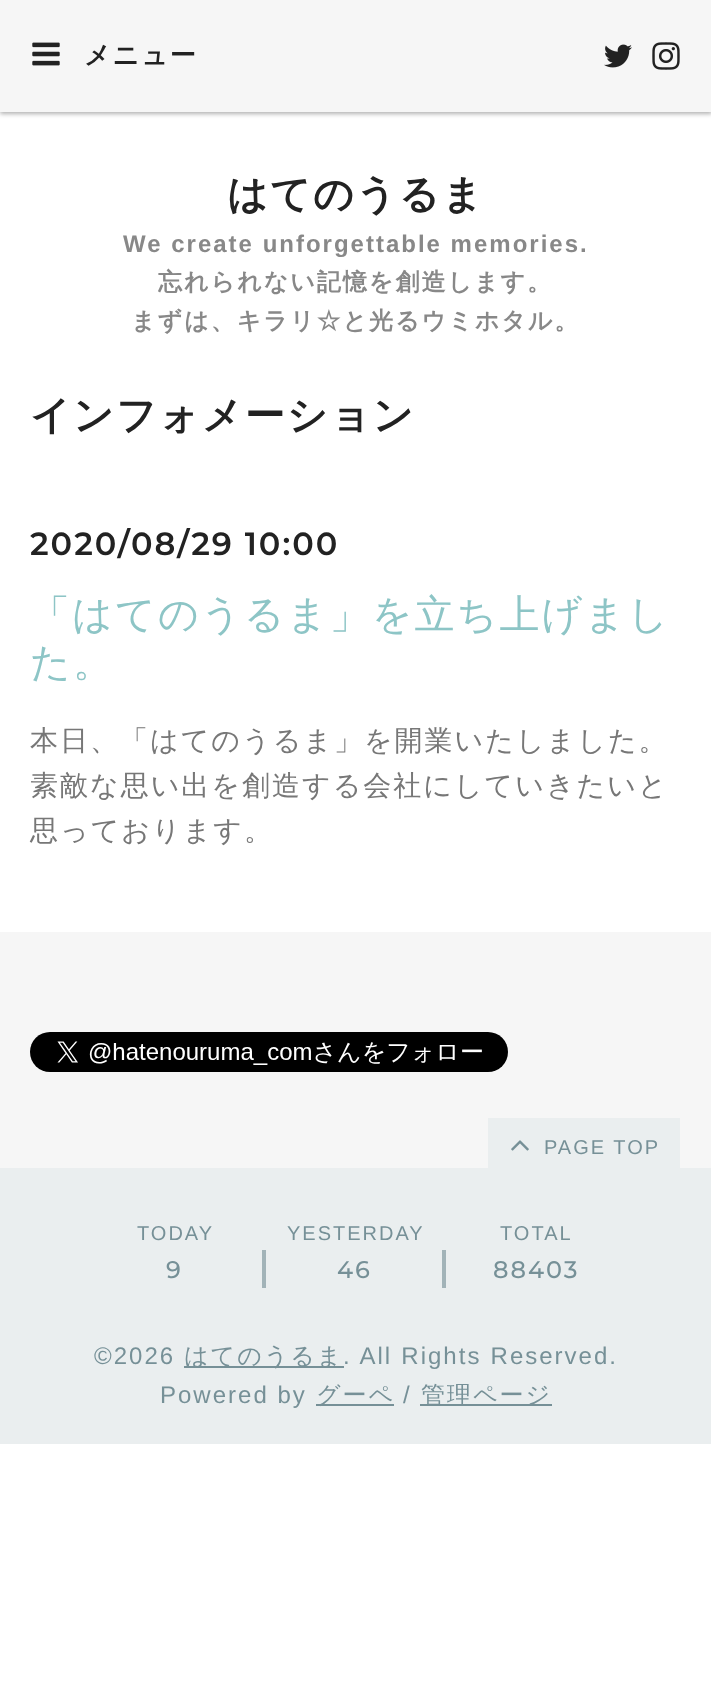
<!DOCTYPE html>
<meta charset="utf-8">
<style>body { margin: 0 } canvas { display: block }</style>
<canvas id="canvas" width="711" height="1695"></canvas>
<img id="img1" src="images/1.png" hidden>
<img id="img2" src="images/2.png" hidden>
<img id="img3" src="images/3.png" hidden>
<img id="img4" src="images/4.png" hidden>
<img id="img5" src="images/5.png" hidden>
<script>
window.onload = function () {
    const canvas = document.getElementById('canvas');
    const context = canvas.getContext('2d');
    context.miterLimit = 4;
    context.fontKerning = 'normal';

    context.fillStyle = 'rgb(255, 255, 255)';
    context.fillRect(0, 0, 711, 1695);
    context.fillStyle = 'rgba(0, 0, 0, 0.3)';
    context.filter = 'blur(2px)';
    context.beginPath();
    context.rect(0, 2, 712, 112);
    context.fill();
    context.filter = 'none';
    context.fillStyle = 'rgb(246, 246, 246)';
    context.fillRect(0, 0, 711, 112);
    context.drawImage(document.getElementById('img1'), 32, 42, 28, 24);
    context.drawImage(document.getElementById('img2'), 604, 44, 28, 24);
    context.drawImage(document.getElementById('img3'), 652, 42, 28, 28);
    context.fillRect(0, 932, 711, 236);
    context.drawImage(document.getElementById('img4'), 30, 1032, 478, 40);
    context.fillStyle = 'rgb(234, 238, 239)';
    context.fillRect(0, 1168, 711, 276);
    context.fillRect(488, 1118, 192, 50);
    context.drawImage(document.getElementById('img5'), 511, 1140, 18, 11);
    context.fillStyle = 'rgb(162, 179, 184)';
    context.fillRect(262, 1250, 4, 38);
    context.fillRect(442, 1250, 4, 38);
    context.fillStyle = 'rgb(118, 144, 151)';
    context.fillRect(184, 1366, 160, 2);
    context.fillRect(316, 1404, 78, 2);
    context.fillRect(420, 1404, 132, 2);
    context.letterSpacing = '2px';
    context.font = 'bold 26px WenQuanYi Zen Hei';
    context.fillStyle = 'rgb(34, 34, 34)';
    context.fillText('メニュー', 84, 64);
    context.font = 'bold 40px WenQuanYi Zen Hei';
    context.fillText('はてのうるま', 227, 208);
    context.font = 'bold 24px Liberation Sans';
    context.fillStyle = 'rgb(136, 136, 136)';
    context.fillText('We create unforgettable memories.', 123, 252);
    context.font = 'bold 24px WenQuanYi Zen Hei';
    context.fillText('忘れられない記憶を創造します。', 158, 290);
    context.fillText('まずは、キラリ☆と光るウミホタル。', 131, 329);
    context.font = 'bold 40px WenQuanYi Zen Hei';
    context.fillStyle = 'rgb(34, 34, 34)';
    context.fillText('インフォメーション', 30, 429);
    context.font = '600 32px Montserrat';
    context.fillText('2020/08/29 10:00', 30, 555);
    context.font = '500 40px WenQuanYi Zen Hei';
    context.fillStyle = 'rgb(141, 197, 198)';
    context.fillText('「はてのうるま」を立ち上げまし', 30, 628);
    context.fillText('た。', 30, 676);
    context.font = '500 28px WenQuanYi Zen Hei';
    context.fillStyle = 'rgb(119, 119, 119)';
    context.fillText('本日、「はてのうるま」を開業いたしました。', 30, 750);
    context.fillText('素敵な思い出を創造する会社にしていきたいと', 30, 795);
    context.fillText('思っております。', 30, 840);
    context.font = '20px Liberation Sans';
    context.fillStyle = 'rgb(118, 144, 151)';
    context.fillText('PAGE TOP', 544, 1154);
    context.fillText('TODAY', 137, 1240);
    context.font = '500 24px Montserrat';
    context.fillText('9', 166, 1278);
    context.font = '20px Liberation Sans';
    context.fillText('YESTERDAY', 287, 1240);
    context.font = '500 24px Montserrat';
    context.fillText('46', 337, 1278);
    context.font = '20px Liberation Sans';
    context.fillText('TOTAL', 500, 1240);
    context.font = '500 24px Montserrat';
    context.fillText('88403', 493, 1278);
    context.font = '24px Liberation Sans';
    context.fillText('©2026', 94, 1364);
    context.font = '500 24px WenQuanYi Zen Hei';
    context.fillText('はてのうるま', 184, 1364);
    context.wordSpacing = '0.5px';
    context.font = '24px Liberation Sans';
    context.fillText('. All Rights Reserved.', 343, 1364);
    context.wordSpacing = '0px';
    context.fillText('Powered by', 160, 1403);
    context.font = '500 24px WenQuanYi Zen Hei';
    context.fillText('グーペ', 316, 1403);
    context.font = '24px Liberation Sans';
    context.fillText('/', 403, 1403);
    context.font = '500 24px WenQuanYi Zen Hei';
    context.fillText('管理ページ', 421, 1403);
};
</script>
